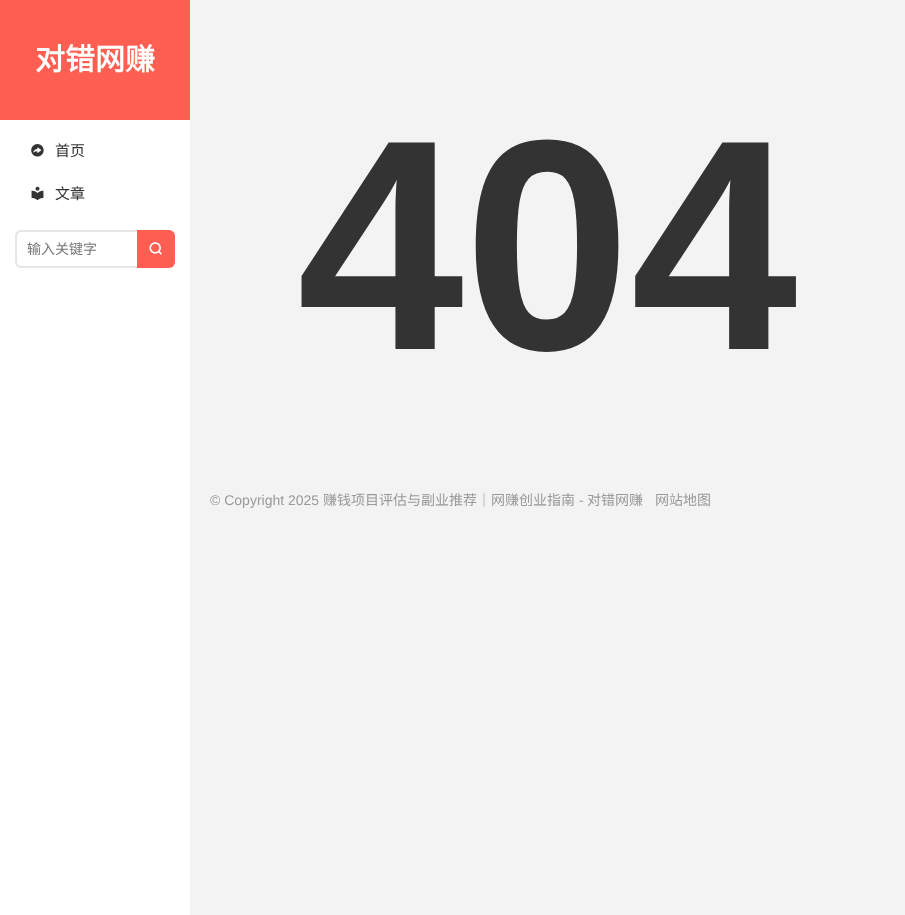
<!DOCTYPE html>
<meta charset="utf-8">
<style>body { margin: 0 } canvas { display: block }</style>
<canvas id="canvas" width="905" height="915"></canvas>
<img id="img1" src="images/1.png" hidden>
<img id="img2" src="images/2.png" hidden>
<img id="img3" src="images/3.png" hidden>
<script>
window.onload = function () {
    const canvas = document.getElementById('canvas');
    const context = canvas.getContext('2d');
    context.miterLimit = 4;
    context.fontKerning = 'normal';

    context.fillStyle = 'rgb(243, 243, 243)';
    context.fillRect(0, 0, 905, 915);
    context.fillStyle = 'rgb(255, 255, 255)';
    context.fillRect(0, 120, 190, 795);
    context.fillStyle = 'rgb(255, 94, 82)';
    context.fillRect(0, 0, 190, 120);
    context.drawImage(document.getElementById('img1'), 31, 144, 13, 13);
    context.drawImage(document.getElementById('img2'), 31, 186, 13, 15);
    context.fillStyle = 'rgb(230, 230, 230)';
    context.beginPath();
    context.moveTo(21, 230);
    context.lineTo(137, 230);
    context.lineTo(137, 268);
    context.lineTo(21, 268);
    context.bezierCurveTo(18, 268, 15, 265, 15, 262);
    context.lineTo(15, 236);
    context.bezierCurveTo(15, 233, 18, 230, 21, 230);
    context.closePath();
    context.moveTo(21, 232);
    context.lineTo(137, 232);
    context.lineTo(137, 266);
    context.lineTo(21, 266);
    context.bezierCurveTo(19, 266, 17, 264, 17, 262);
    context.lineTo(17, 236);
    context.bezierCurveTo(17, 234, 19, 232, 21, 232);
    context.closePath();
    context.fill('evenodd');
    context.fillStyle = 'rgb(255, 94, 82)';
    context.beginPath();
    context.roundRect(137, 230, 38, 38, [0, 6, 6, 0]);
    context.fill();
    context.drawImage(document.getElementById('img3'), 149, 242, 13, 13);
    context.font = 'bold 30px Noto Sans CJK SC';
    context.fillStyle = 'rgb(255, 255, 255)';
    context.fillText('对错网赚', 35, 70);
    context.font = '15px Noto Sans CJK SC';
    context.fillStyle = 'rgb(51, 51, 51)';
    context.fillText('首页', 55, 156);
    context.fillText('文章', 55, 199);
    context.font = '14px Noto Sans CJK SC';
    context.fillStyle = 'rgb(117, 117, 117)';
    context.fillText('输入关键字', 27, 254);
    context.font = 'bold 300px Liberation Sans';
    context.fillStyle = 'rgb(51, 51, 51)';
    context.fillText('404', 297, 349);
    context.font = '14px Liberation Sans';
    context.fillStyle = 'rgb(153, 153, 153)';
    context.fillText('© Copyright 2025', 210, 505);
    context.font = '14px Noto Sans CJK SC';
    context.fillText('赚钱项目评估与副业推荐｜网赚创业指南', 323, 505);
    context.font = '14px Liberation Sans';
    context.fillText('-', 579, 505);
    context.font = '14px Noto Sans CJK SC';
    context.fillText('对错网赚', 587, 505);
    context.fillText('网站地图', 655, 505);
};
</script>
